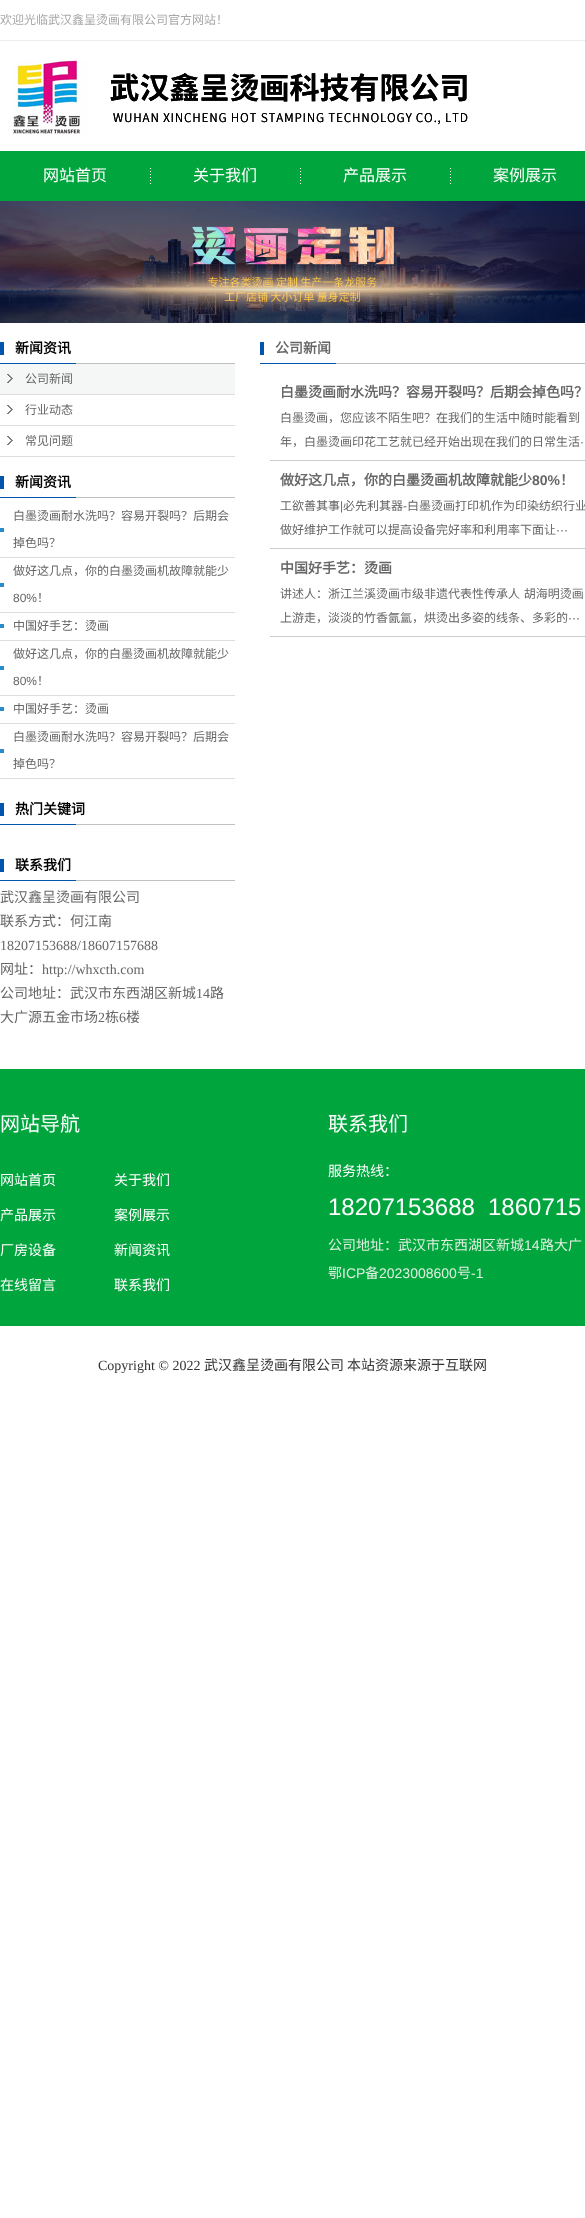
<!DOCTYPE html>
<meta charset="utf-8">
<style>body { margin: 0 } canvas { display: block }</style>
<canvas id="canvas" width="585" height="2218"></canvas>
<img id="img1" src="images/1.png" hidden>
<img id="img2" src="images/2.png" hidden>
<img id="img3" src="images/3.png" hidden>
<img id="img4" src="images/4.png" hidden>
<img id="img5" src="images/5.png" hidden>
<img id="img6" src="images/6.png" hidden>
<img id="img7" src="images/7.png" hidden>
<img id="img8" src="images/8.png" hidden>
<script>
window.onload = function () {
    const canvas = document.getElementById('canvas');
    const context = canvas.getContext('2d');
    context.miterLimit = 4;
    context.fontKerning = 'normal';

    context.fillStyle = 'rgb(255, 255, 255)';
    context.fillRect(0, 0, 585, 2218);
    context.fillStyle = 'rgb(237, 237, 237)';
    context.fillRect(0, 40, 585, 1);
    context.drawImage(document.getElementById('img1'), 13, 60, 455, 74);
    context.fillStyle = 'rgb(0, 165, 61)';
    context.fillRect(0, 151, 585, 50);
    context.drawImage(document.getElementById('img2'), 150, 168, 1, 16);
    context.drawImage(document.getElementById('img2'), 300, 168, 1, 16);
    context.drawImage(document.getElementById('img2'), 450, 168, 1, 16);
    context.drawImage(document.getElementById('img3'), 0, 201, 585, 122);
    context.drawImage(document.getElementById('img4'), 0, 342, 235, 22);
    context.fillStyle = 'rgb(245, 246, 246)';
    context.fillRect(0, 364, 235, 30);
    context.drawImage(document.getElementById('img5'), 7, 374, 6, 9);
    context.fillStyle = 'rgb(221, 221, 221)';
    context.fillRect(0, 394, 235, 1);
    context.drawImage(document.getElementById('img6'), 7, 405, 6, 9);
    context.fillRect(0, 425, 235, 1);
    context.drawImage(document.getElementById('img6'), 7, 436, 6, 9);
    context.fillRect(0, 456, 235, 1);
    context.drawImage(document.getElementById('img4'), 0, 476, 235, 22);
    context.drawImage(document.getElementById('img7'), 0, 528, 4, 4);
    context.fillRect(0, 557, 235, 1);
    context.drawImage(document.getElementById('img7'), 0, 583, 4, 4);
    context.fillRect(0, 612, 235, 1);
    context.drawImage(document.getElementById('img7'), 0, 624, 4, 4);
    context.fillRect(0, 640, 235, 1);
    context.drawImage(document.getElementById('img7'), 0, 666, 4, 4);
    context.fillRect(0, 695, 235, 1);
    context.drawImage(document.getElementById('img7'), 0, 707, 4, 4);
    context.fillRect(0, 723, 235, 1);
    context.drawImage(document.getElementById('img7'), 0, 749, 4, 4);
    context.fillRect(0, 778, 235, 1);
    context.drawImage(document.getElementById('img4'), 0, 803, 235, 22);
    context.drawImage(document.getElementById('img4'), 0, 859, 235, 22);
    context.drawImage(document.getElementById('img8'), 260, 342, 325, 22);
    context.fillStyle = 'rgb(204, 204, 204)';
    context.fillRect(270, 460, 315, 1);
    context.fillRect(270, 548, 315, 1);
    context.fillRect(270, 636, 315, 1);
    context.fillStyle = 'rgb(0, 165, 61)';
    context.fillRect(0, 1069, 585, 257);
    context.font = '12px Noto Sans CJK SC';
    context.fillStyle = 'rgb(167, 167, 167)';
    context.fillText('欢迎光临武汉鑫呈烫画有限公司官方网站！', 0, 24);
    context.font = '16px Noto Sans CJK SC';
    context.fillStyle = 'rgb(255, 255, 255)';
    context.fillText('网站首页', 43, 181);
    context.fillText('关于我们', 193, 181);
    context.fillText('产品展示', 343, 181);
    context.fillText('案例展示', 493, 181);
    context.font = 'bold 14px Noto Sans CJK SC';
    context.fillStyle = 'rgb(0, 0, 0)';
    context.fillText('新闻资讯', 15, 353);
    context.font = '12px Noto Sans CJK SC';
    context.fillStyle = 'rgb(102, 102, 102)';
    context.fillText('公司新闻', 25, 383);
    context.fillText('行业动态', 25, 414);
    context.fillText('常见问题', 25, 445);
    context.font = 'bold 14px Noto Sans CJK SC';
    context.fillStyle = 'rgb(0, 0, 0)';
    context.fillText('新闻资讯', 15, 487);
    context.font = '12px Noto Sans CJK SC';
    context.fillStyle = 'rgb(102, 102, 102)';
    context.fillText('白墨烫画耐水洗吗？容易开裂吗？后期会', 13, 520);
    context.fillText('掉色吗？', 13, 547);
    context.fillText('做好这几点，你的白墨烫画机故障就能少', 13, 575);
    context.font = '12px Liberation Sans';
    context.fillText('80%', 13, 602);
    context.font = '12px Noto Sans CJK SC';
    context.fillText('！', 37, 602);
    context.fillText('中国好手艺：烫画', 13, 630);
    context.fillText('做好这几点，你的白墨烫画机故障就能少', 13, 658);
    context.font = '12px Liberation Sans';
    context.fillText('80%', 13, 685);
    context.font = '12px Noto Sans CJK SC';
    context.fillText('！', 37, 685);
    context.fillText('中国好手艺：烫画', 13, 713);
    context.fillText('白墨烫画耐水洗吗？容易开裂吗？后期会', 13, 741);
    context.fillText('掉色吗？', 13, 768);
    context.font = 'bold 14px Noto Sans CJK SC';
    context.fillStyle = 'rgb(0, 0, 0)';
    context.fillText('热门关键词', 15, 814);
    context.fillText('联系我们', 15, 870);
    context.font = '14px Noto Sans CJK SC';
    context.fillStyle = 'rgb(102, 102, 102)';
    context.fillText('武汉鑫呈烫画有限公司', 0, 902);
    context.fillText('联系方式：何江南', 0, 926);
    context.font = '14px Liberation Serif';
    context.fillText('18207153688/18607157688', 0, 950);
    context.font = '14px Noto Sans CJK SC';
    context.fillText('网址：', 0, 974);
    context.font = '14px Liberation Serif';
    context.fillText('http://whxcth.com', 42, 974);
    context.font = '14px Noto Sans CJK SC';
    context.fillText('公司地址：武汉市东西湖区新城', 0, 998);
    context.font = '14px Liberation Serif';
    context.fillText('14', 196, 998);
    context.font = '14px Noto Sans CJK SC';
    context.fillText('路', 210, 998);
    context.fillText('大广源五金市场', 0, 1022);
    context.font = '14px Liberation Serif';
    context.fillText('2', 98, 1022);
    context.font = '14px Noto Sans CJK SC';
    context.fillText('栋', 105, 1022);
    context.font = '14px Liberation Serif';
    context.fillText('6', 119, 1022);
    context.font = '14px Noto Sans CJK SC';
    context.fillText('楼', 126, 1022);
    context.font = 'bold 14px Noto Sans CJK SC';
    context.fillText('公司新闻', 275, 353);
    context.fillText('白墨烫画耐水洗吗？容易开裂吗？后期会掉色吗？', 280, 397);
    context.font = '12px Noto Sans CJK SC';
    context.fillText('白墨烫画，您应该不陌生吧？在我们的生活中随时能看到', 280, 422);
    context.fillText('年，白墨烫画印花工艺就已经开始出现在我们的日常生活', 280, 446);
    context.font = '12px Liberation Sans';
    context.fillText('·', 580, 446);
    context.font = 'bold 14px Noto Sans CJK SC';
    context.fillText('做好这几点，你的白墨烫画机故障就能少', 280, 485);
    context.font = 'bold 14px Liberation Sans';
    context.fillText('80%', 532, 485);
    context.font = 'bold 14px Noto Sans CJK SC';
    context.fillText('！', 560, 485);
    context.font = '12px Noto Sans CJK SC';
    context.fillText('工欲善其事', 280, 510);
    context.font = '12px Liberation Sans';
    context.fillText('|', 340, 510);
    context.font = '12px Noto Sans CJK SC';
    context.fillText('必先利其器', 343, 510);
    context.font = '12px Liberation Sans';
    context.fillText('-', 403, 510);
    context.font = '12px Noto Sans CJK SC';
    context.fillText('白墨烫画打印机作为印染纺织行业', 407, 510);
    context.fillText('做好维护工作就可以提高设备完好率和利用率下面让', 280, 534);
    context.font = '12px Liberation Sans';
    context.fillText('···', 556, 534);
    context.font = 'bold 14px Noto Sans CJK SC';
    context.fillText('中国好手艺：烫画', 280, 573);
    context.wordSpacing = '1px';
    context.font = '12px Noto Sans CJK SC';
    context.fillText('讲述人：浙江兰溪烫画市级非遗代表性传承人 胡海明烫画', 280, 598);
    context.wordSpacing = '0px';
    context.fillText('上游走，淡淡的竹香氤氲，烘烫出多姿的线条、多彩的', 280, 622);
    context.font = '12px Liberation Sans';
    context.fillText('···', 568, 622);
    context.font = '20px Noto Sans CJK SC';
    context.fillStyle = 'rgb(255, 255, 255)';
    context.fillText('网站导航', 0, 1131);
    context.font = '14px Noto Sans CJK SC';
    context.fillText('网站首页', 0, 1185);
    context.fillText('关于我们', 114, 1185);
    context.fillText('产品展示', 0, 1220);
    context.fillText('案例展示', 114, 1220);
    context.fillText('厂房设备', 0, 1255);
    context.fillText('新闻资讯', 114, 1255);
    context.fillText('在线留言', 0, 1290);
    context.fillText('联系我们', 114, 1290);
    context.font = '20px Noto Sans CJK SC';
    context.fillText('联系我们', 328, 1131);
    context.font = '14px Noto Sans CJK SC';
    context.fillText('服务热线：', 328, 1176);
    context.font = '24px Liberation Sans';
    context.fillText('18207153688', 328, 1215);
    context.fillText('1860715', 488, 1215);
    context.font = '14px Noto Sans CJK SC';
    context.fillStyle = 'rgb(223, 240, 224)';
    context.fillText('公司地址：武汉市东西湖区新城', 328, 1250);
    context.font = '14px Liberation Sans';
    context.fillText('14', 524, 1250);
    context.font = '14px Noto Sans CJK SC';
    context.fillText('路大广', 540, 1250);
    context.fillText('鄂', 328, 1278);
    context.font = '14px Liberation Sans';
    context.fillText('ICP', 342, 1278);
    context.font = '14px Noto Sans CJK SC';
    context.fillText('备', 365, 1278);
    context.font = '14px Liberation Sans';
    context.fillText('2023008600', 379, 1278);
    context.font = '14px Noto Sans CJK SC';
    context.fillText('号', 457, 1278);
    context.font = '14px Liberation Sans';
    context.fillText('-1', 471, 1278);
    context.font = '14px Liberation Serif';
    context.fillStyle = 'rgb(51, 51, 51)';
    context.fillText('Copyright © 2022', 98, 1370);
    context.font = '14px Noto Sans CJK SC';
    context.fillText('武汉鑫呈烫画有限公司', 204, 1370);
    context.fillText('本站资源来源于互联网', 347, 1370);
};
</script>
